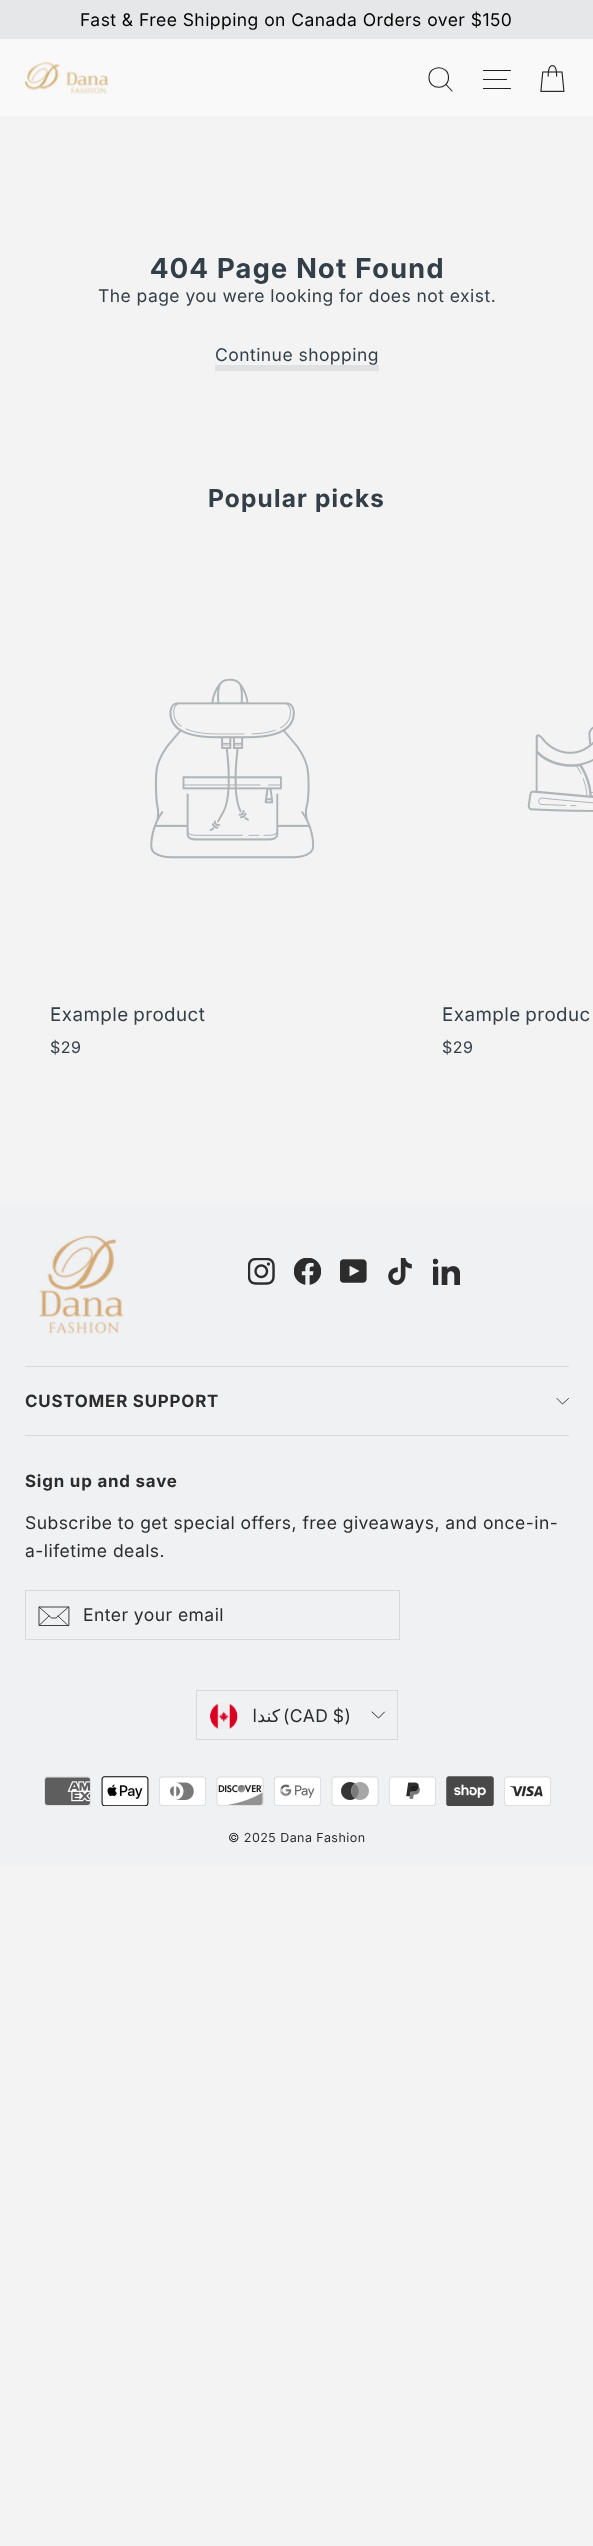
<!DOCTYPE html>
<meta charset="utf-8">
<style>body { margin: 0 } canvas { display: block }</style>
<canvas id="canvas" width="593" height="2546"></canvas>
<img id="img1" src="images/1.png" hidden>
<img id="img2" src="images/2.png" hidden>
<img id="img3" src="images/3.png" hidden>
<img id="img4" src="images/4.png" hidden>
<img id="img5" src="images/5.png" hidden>
<img id="img6" src="images/6.png" hidden>
<img id="img7" src="images/7.png" hidden>
<img id="img8" src="images/8.png" hidden>
<img id="img9" src="images/9.png" hidden>
<img id="img10" src="images/10.png" hidden>
<img id="img11" src="images/11.png" hidden>
<img id="img12" src="images/12.png" hidden>
<img id="img13" src="images/13.png" hidden>
<img id="img14" src="images/14.png" hidden>
<img id="img15" src="images/15.png" hidden>
<img id="img16" src="images/16.png" hidden>
<img id="img17" src="images/17.png" hidden>
<img id="img18" src="images/18.png" hidden>
<img id="img19" src="images/19.png" hidden>
<img id="img20" src="images/20.png" hidden>
<script>
window.onload = function () {
    const canvas = document.getElementById('canvas');
    const context = canvas.getContext('2d');
    context.miterLimit = 4;
    context.fontKerning = 'normal';

    context.fillStyle = 'rgb(243, 243, 243)';
    context.fillRect(0, 0, 593, 2546);
    context.fillStyle = 'rgb(229, 231, 232)';
    context.fillRect(0, 0, 593, 39);
    context.fillStyle = 'rgb(249, 249, 249)';
    context.fillRect(0, 39, 593, 77);
    context.drawImage(document.getElementById('img1'), 25, 62, 84, 32);
    context.beginPath();
    context.moveTo(448.5, 77.5);
    context.bezierCurveTo(448.5, 90.5, 429, 90.5, 429, 77.5);
    context.bezierCurveTo(429, 64.5, 448.5, 64.5, 448.5, 77.5);
    context.closePath();
    context.moveTo(452, 91);
    context.lineTo(446, 84.5);
    context.strokeStyle = 'rgb(28, 29, 29)';
    context.lineWidth = 1.1;
    context.lineCap = 'round';
    context.lineJoin = 'round';
    context.stroke();
    context.beginPath();
    context.moveTo(483.5, 70.5);
    context.lineTo(510.5, 70.5);
    context.moveTo(483.5, 79.5);
    context.lineTo(506.5, 79.5);
    context.moveTo(483.5, 88.5);
    context.lineTo(510.5, 88.5);
    context.stroke();
    context.drawImage(document.getElementById('img2'), 540, 65, 25, 27);
    context.fillStyle = 'rgb(224, 225, 226)';
    context.fillRect(215, 365, 164, 6);
    context.drawImage(document.getElementById('img3'), 150, 678, 165, 181);
    context.drawImage(document.getElementById('img4'), 527, 726, 66, 86);
    context.fillStyle = 'rgb(240, 241, 243)';
    context.fillRect(0, 1203, 593, 663);
    context.drawImage(document.getElementById('img5'), 38, 1235, 86, 99);
    context.drawImage(document.getElementById('img6'), 248, 1258, 27, 27);
    context.drawImage(document.getElementById('img7'), 294, 1258, 27, 27);
    context.drawImage(document.getElementById('img8'), 340, 1259, 27, 24);
    context.drawImage(document.getElementById('img9'), 388, 1258, 24, 27);
    context.drawImage(document.getElementById('img10'), 433, 1258, 27, 27);
    context.fillStyle = 'rgb(216, 217, 219)';
    context.fillRect(25, 1366, 544, 1);
    context.beginPath();
    context.moveTo(557, 1398.5);
    context.lineTo(562.5, 1404);
    context.lineTo(568.5, 1398.5);
    context.strokeStyle = 'rgb(44, 44, 44)';
    context.lineWidth = 0.9;
    context.stroke();
    context.fillRect(25, 1435, 544, 1);
    context.strokeStyle = 'rgb(216, 217, 219)';
    context.lineWidth = 1;
    context.lineJoin = 'miter';
    context.strokeRect(25.5, 1590.5, 374, 49);
    context.beginPath();
    context.moveTo(68.5, 1625.5);
    context.lineTo(39, 1625.5);
    context.lineTo(39, 1607);
    context.lineTo(68.5, 1607);
    context.closePath();
    context.moveTo(39, 1607);
    context.lineTo(51.5, 1618);
    context.lineTo(56, 1618);
    context.lineTo(68.5, 1607);
    context.moveTo(49, 1616);
    context.lineTo(39.5, 1625);
    context.moveTo(68, 1625.5);
    context.lineTo(58, 1616);
    context.strokeStyle = 'rgb(44, 44, 44)';
    context.lineWidth = 0.9;
    context.lineJoin = 'round';
    context.stroke();
    context.strokeStyle = 'rgb(216, 217, 219)';
    context.lineWidth = 1;
    context.lineJoin = 'miter';
    context.strokeRect(196.5, 1690.5, 201, 49);
    context.drawImage(document.getElementById('img11'), 210, 1703, 28, 26);
    context.beginPath();
    context.moveTo(372, 1712);
    context.lineTo(378.5, 1718);
    context.lineTo(384.5, 1712);
    context.strokeStyle = 'rgb(44, 44, 44)';
    context.lineJoin = 'round';
    context.stroke();
    context.drawImage(document.getElementById('img12'), 44, 1776, 47, 30);
    context.drawImage(document.getElementById('img13'), 101, 1776, 48, 30);
    context.drawImage(document.getElementById('img14'), 159, 1776, 47, 30);
    context.drawImage(document.getElementById('img15'), 216, 1776, 48, 30);
    context.drawImage(document.getElementById('img16'), 274, 1776, 47, 30);
    context.drawImage(document.getElementById('img17'), 331, 1776, 48, 30);
    context.drawImage(document.getElementById('img18'), 389, 1776, 47, 30);
    context.drawImage(document.getElementById('img19'), 446, 1776, 48, 30);
    context.drawImage(document.getElementById('img20'), 504, 1776, 47, 30);
    context.letterSpacing = '0.45px';
    context.font = '17.5px Inter';
    context.fillStyle = 'rgb(0, 0, 0)';
    context.fillText('Fast & Free Shipping on Canada Orders over $150', 80, 26);
    context.letterSpacing = '1.4px';
    context.font = 'bold 27.6px Inter';
    context.fillStyle = 'rgb(50, 62, 72)';
    context.fillText('404 Page Not Found', 150, 278);
    context.letterSpacing = '0.45px';
    context.font = '17.5px Inter';
    context.fillText('The page you were looking for does not exist.', 98, 302);
    context.fillText('Continue shopping', 215, 361);
    context.letterSpacing = '1.25px';
    context.font = 'bold 24.75px "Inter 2"';
    context.fillText('Popular picks', 208, 507);
    context.letterSpacing = '0.45px';
    context.wordSpacing = '-1px';
    context.font = '18.75px Inter';
    context.fillText('Example product', 50, 1021);
    context.wordSpacing = '0px';
    context.font = '16px Inter';
    context.fillText('$29', 50, 1053);
    context.wordSpacing = '-1px';
    context.font = '18.75px Inter';
    context.fillText('Example produc', 442, 1021);
    context.wordSpacing = '0px';
    context.font = '16px Inter';
    context.fillText('$29', 442, 1053);
    context.letterSpacing = '0.8px';
    context.font = 'bold 16.9px "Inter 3"';
    context.fillStyle = 'rgb(44, 44, 44)';
    context.fillText('CUSTOMER SUPPORT', 25, 1407);
    context.fillText('Sign up and save', 25, 1487);
    context.letterSpacing = '0.45px';
    context.font = '17.5px Inter';
    context.fillText('Subscribe to get special offers, free giveaways, and once-in-', 25, 1529);
    context.fillText('a-lifetime deals.', 25, 1557);
    context.fillText('Enter your email', 83, 1621);
    context.direction = 'rtl';
    context.font = '17.5px DejaVu Sans';
    context.fillText('كندا', 280, 1722);
    context.wordSpacing = '-1px';
    context.direction = 'ltr';
    context.font = '17.5px Inter';
    context.fillText('(CAD $)', 283, 1722);
    context.wordSpacing = '0px';
    context.font = '12.5px Inter';
    context.fillText('© 2025 Dana Fashion', 228, 1842);
};
</script>
